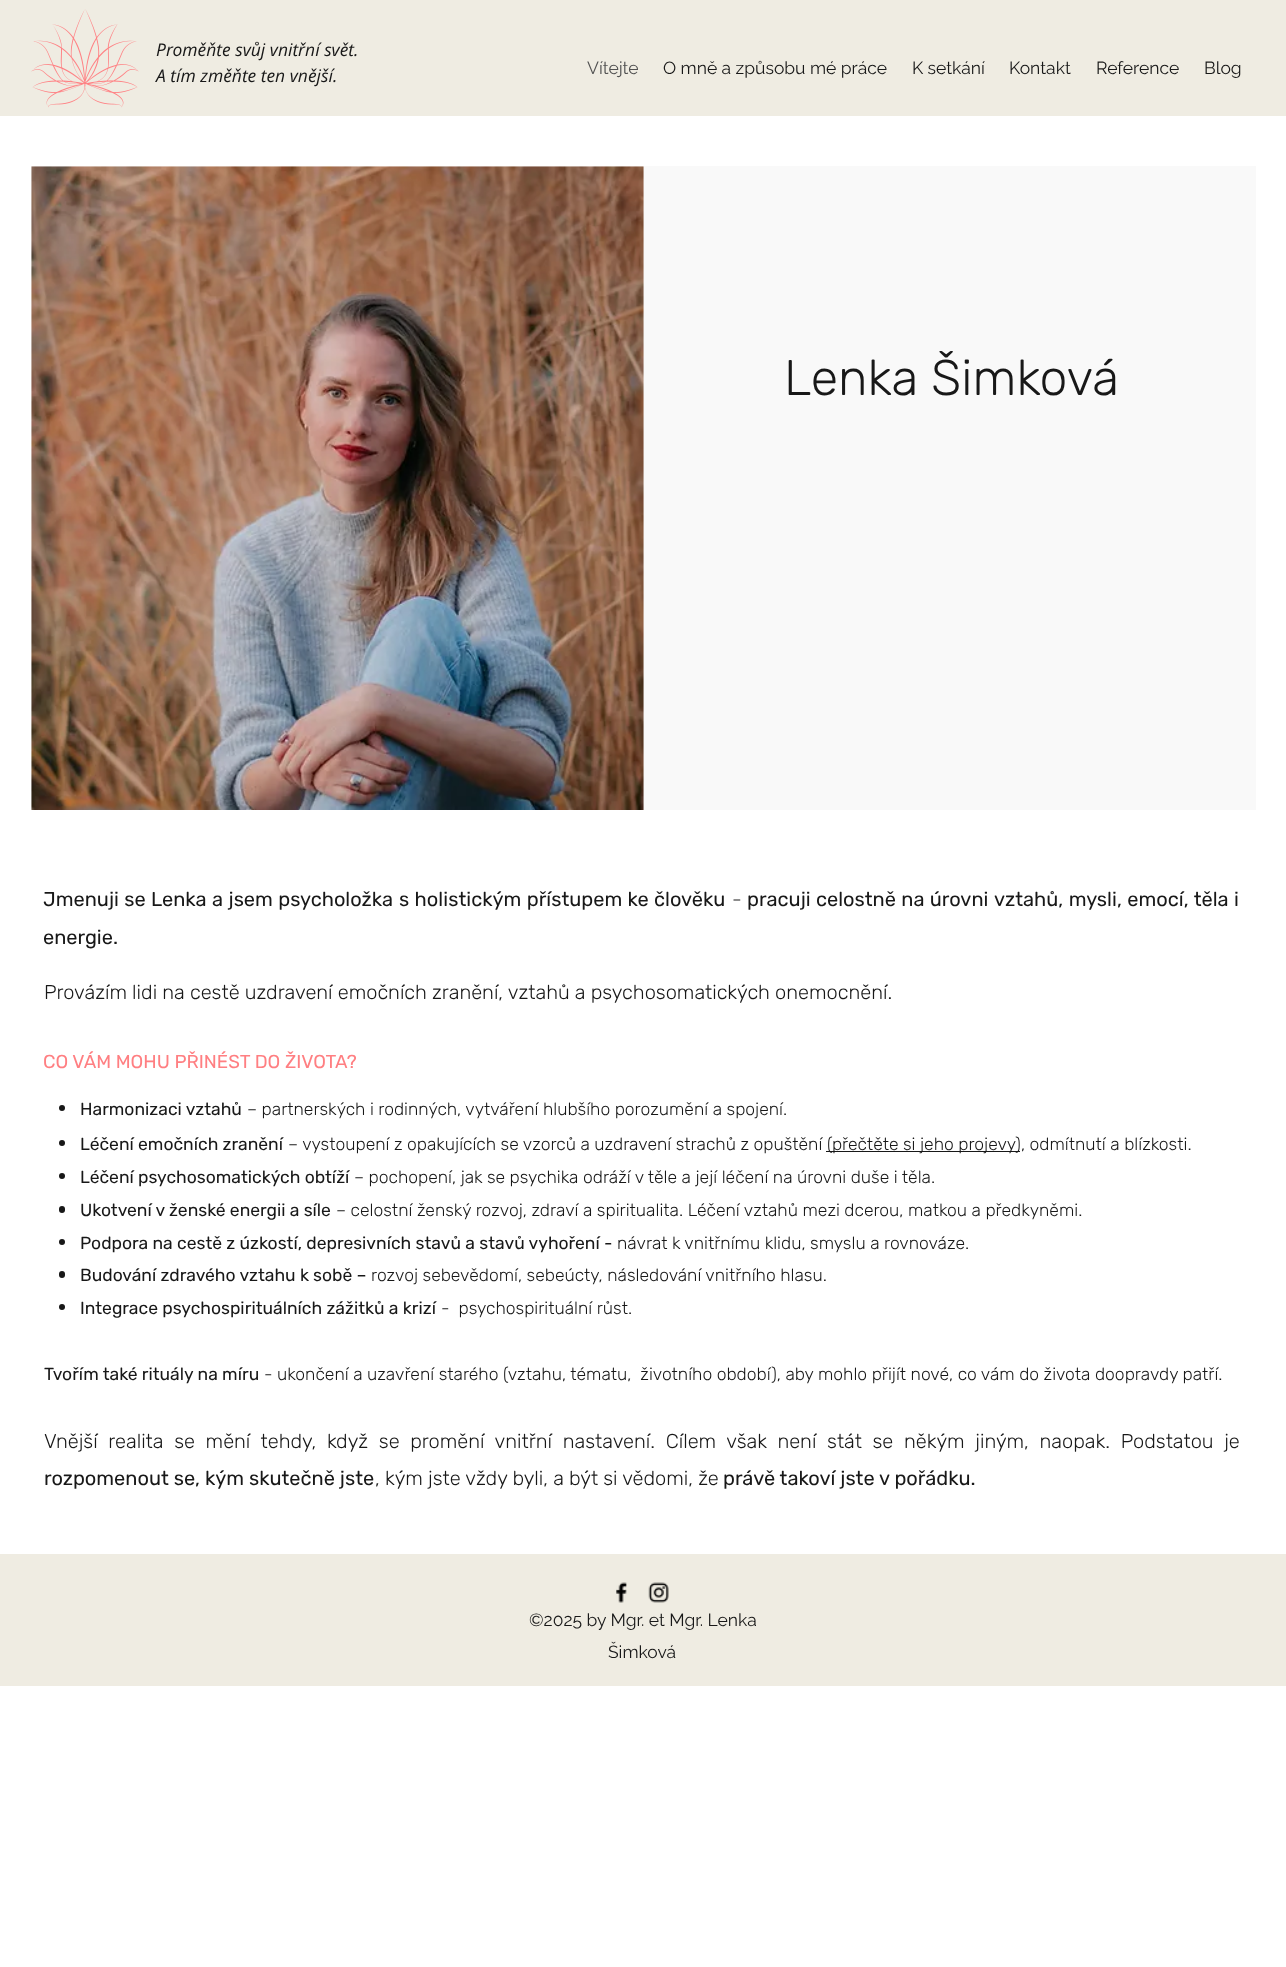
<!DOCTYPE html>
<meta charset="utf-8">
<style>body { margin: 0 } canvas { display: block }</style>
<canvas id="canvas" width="1286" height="1967"></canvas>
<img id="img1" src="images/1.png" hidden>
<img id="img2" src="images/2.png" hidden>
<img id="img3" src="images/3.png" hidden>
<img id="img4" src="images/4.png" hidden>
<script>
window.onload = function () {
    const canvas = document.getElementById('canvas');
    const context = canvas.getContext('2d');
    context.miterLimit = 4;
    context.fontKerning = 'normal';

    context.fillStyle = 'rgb(255, 255, 255)';
    context.fillRect(0, 0, 1286, 1967);
    context.fillStyle = 'rgb(239, 236, 226)';
    context.fillRect(0, 0, 1286, 116);
    context.drawImage(document.getElementById('img1'), 31, 9, 108, 99);
    context.drawImage(document.getElementById('img2'), 31, 166, 613, 644);
    context.fillStyle = 'rgb(249, 249, 249)';
    context.fillRect(644, 166, 612, 644);
    context.fillStyle = 'rgb(24, 24, 24)';
    context.beginPath();
    context.arc(62, 1108, 3, 0, 2 * Math.PI);
    context.fill();
    context.beginPath();
    context.arc(62, 1143, 3, 0, 2 * Math.PI);
    context.fill();
    context.fillRect(826, 1151, 194, 1);
    context.beginPath();
    context.arc(62, 1176, 3, 0, 2 * Math.PI);
    context.fill();
    context.beginPath();
    context.roundRect(59, 1206, 6, 7, 3);
    context.fill();
    context.beginPath();
    context.arc(62, 1242, 3, 0, 2 * Math.PI);
    context.fill();
    context.beginPath();
    context.roundRect(59, 1271, 6, 7, 3);
    context.fill();
    context.beginPath();
    context.arc(62, 1307, 3, 0, 2 * Math.PI);
    context.fill();
    context.fillStyle = 'rgb(239, 236, 226)';
    context.fillRect(0, 1554, 1286, 132);
    context.drawImage(document.getElementById('img3'), 616, 1582, 11, 21);
    context.drawImage(document.getElementById('img4'), 648, 1582, 21, 21);
    context.font = 'italic 17.5px Open Sans';
    context.fillStyle = 'rgb(24, 24, 24)';
    context.fillText('Proměňte svůj vnitřní svět.', 156, 56);
    context.fillText('A tím změňte ten vnější.', 156, 82);
    context.font = '17.5px Raleway';
    context.fillStyle = 'rgb(82, 82, 82)';
    context.fillText('Vítejte', 587, 74);
    context.fillStyle = 'rgb(24, 24, 24)';
    context.fillText('O mně a způsobu mé práce', 663, 74);
    context.fillText('K setkání', 912, 74);
    context.fillText('Kontakt', 1009, 74);
    context.fillText('Reference', 1096, 74);
    context.fillText('Blog', 1204, 74);
    context.font = '300 50px Rubik';
    context.fillText('Lenka Šimková', 784, 395);
    context.wordSpacing = '0.5px';
    context.font = '20px Rubik';
    context.fillText('Jmenuji se', 43, 906);
    context.wordSpacing = '0px';
    context.fillText('Lenka', 151, 906);
    context.wordSpacing = '0.5px';
    context.fillText('a jsem psycholožka', 212, 906);
    context.fillText('s holistickým přístupem ke člověku', 399, 906);
    context.wordSpacing = '0px';
    context.font = '300 20px Rubik';
    context.fillText('-', 732, 906);
    context.font = '20px Rubik';
    context.fillText('p', 747, 906);
    context.wordSpacing = '0.5px';
    context.fillText('racuji celostně na úrovni', 759, 906);
    context.fillText('vztahů, mysli, emocí, těla i', 994, 906);
    context.wordSpacing = '0px';
    context.fillText('energie.', 43, 944);
    context.font = '300 20px Rubik';
    context.fillText('Provázím lidi na cestě uzdravení emočních zranění, vztahů a psychosomatických onemocnění.', 44, 999);
    context.font = '18.75px Rubik';
    context.fillStyle = 'rgb(255, 127, 130)';
    context.fillText('CO VÁM MOHU PŘINÉST DO ŽIVOTA?', 43, 1068);
    context.font = '17.5px Rubik';
    context.fillStyle = 'rgb(24, 24, 24)';
    context.fillText('Harmonizaci vztahů', 80, 1115);
    context.font = '300 17.5px Rubik';
    context.fillText('– partnerských i rodinných, vytváření hlubšího porozumění a spojení.', 247, 1115);
    context.font = '17.5px Rubik';
    context.fillText('Léčení emočních zranění', 80, 1150);
    context.font = '300 17.5px Rubik';
    context.fillText('– vystoupení z opakujících se vzorců a uzdravení strachů z opuštění', 288, 1150);
    context.fillText('(přečtěte si jeho projevy), odmítnutí a blízkosti.', 827, 1150);
    context.font = '17.5px Rubik';
    context.fillText('Léčení psychosomatických obtíží', 80, 1183);
    context.font = '300 17.5px Rubik';
    context.fillText('– pochopení, jak se psychika odráží v těle a její léčení na úrovni duše i těla.', 354, 1183);
    context.font = '17.5px Rubik';
    context.fillText('Ukotvení v ženské energii a síle', 80, 1216);
    context.font = '300 17.5px Rubik';
    context.fillText('– celostní ženský rozvoj, zdraví a spiritualita. Léčení vztahů mezi dcerou, matkou a předkyněmi.', 336, 1216);
    context.font = '17.5px Rubik';
    context.fillText('Podpora na cestě z úzkostí, depresivních stavů a stavů vyhoření -', 80, 1249);
    context.font = '300 17.5px Rubik';
    context.fillText('návrat k vnitřnímu klidu, smyslu a rovnováze.', 617, 1249);
    context.font = '17.5px Rubik';
    context.fillText('Budování zdravého vztahu k sobě –', 80, 1281);
    context.font = '300 17.5px Rubik';
    context.fillText('rozvoj sebevědomí, sebeúcty, následování vnitřního hlasu.', 371, 1281);
    context.font = '17.5px Rubik';
    context.fillText('Integrace psychospirituálních zážitků a krizí', 80, 1314);
    context.font = '300 17.5px Rubik';
    context.fillText('-  psychospirituální růst.', 441, 1314);
    context.font = '17.5px Rubik';
    context.fillText('Tvořím také rituály na míru', 44, 1380);
    context.font = '300 17.5px Rubik';
    context.fillText('- ukončení a uzavření starého (vztahu, tématu,  životního období), aby mohlo přijít nové, co vám do života doopravdy patří.', 264, 1380);
    context.wordSpacing = '5.5px';
    context.font = '300 20px Rubik';
    context.fillText('Vnější realita se mění tehdy, když se promění vnitřní nastavení. Cílem však není stát se někým jiným, naopak. Podstatou je', 44, 1448);
    context.wordSpacing = '0px';
    context.font = '20px Rubik';
    context.fillText('rozpomenout se, kým skutečně jste', 44, 1485);
    context.font = '300 20px Rubik';
    context.fillText(', kým jste vždy byli, a být si vědomi, že', 375, 1485);
    context.font = '20px Rubik';
    context.fillText('právě takoví jste v pořádku.', 723, 1485);
    context.font = '17.5px Raleway';
    context.fillText('©2025 by Mgr. et Mgr. Lenka', 529, 1626);
    context.fillText('Šimková', 608, 1658);
};
</script>
